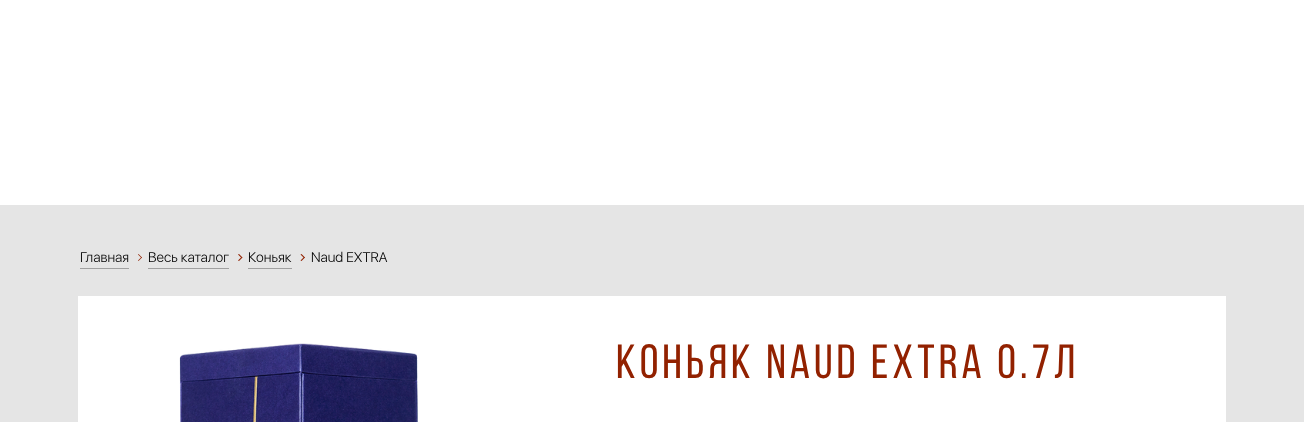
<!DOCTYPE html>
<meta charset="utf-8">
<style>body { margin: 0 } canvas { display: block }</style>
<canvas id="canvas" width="1304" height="422"></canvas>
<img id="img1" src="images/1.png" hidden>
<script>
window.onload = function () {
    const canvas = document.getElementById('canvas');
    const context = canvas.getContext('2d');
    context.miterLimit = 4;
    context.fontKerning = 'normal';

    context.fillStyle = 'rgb(229, 229, 229)';
    context.fillRect(0, 0, 1304, 422);
    context.fillStyle = 'rgb(255, 255, 255)';
    context.fillRect(0, 0, 1304, 205);
    context.fillStyle = 'rgb(160, 160, 160)';
    context.fillRect(80, 268, 49, 1);
    context.fillStyle = 'rgb(146, 33, 0)';
    context.beginPath();
    context.moveTo(138.5, 254);
    context.lineTo(142, 257.5);
    context.lineTo(141.5, 258);
    context.lineTo(138, 254.5);
    context.closePath();
    context.fill();
    context.beginPath();
    context.moveTo(141.5, 257);
    context.lineTo(142, 257.5);
    context.lineTo(138.5, 261);
    context.lineTo(138, 260.5);
    context.closePath();
    context.fill();
    context.fillStyle = 'rgb(160, 160, 160)';
    context.fillRect(148, 268, 81, 1);
    context.fillStyle = 'rgb(146, 33, 0)';
    context.beginPath();
    context.moveTo(239, 254);
    context.lineTo(242.5, 257.5);
    context.lineTo(241.5, 258);
    context.lineTo(238, 254.5);
    context.closePath();
    context.fill();
    context.beginPath();
    context.moveTo(241.5, 257);
    context.lineTo(242.5, 257.5);
    context.lineTo(239, 261);
    context.lineTo(238, 260.5);
    context.closePath();
    context.fill();
    context.fillStyle = 'rgb(160, 160, 160)';
    context.fillRect(248, 268, 44, 1);
    context.fillStyle = 'rgb(146, 33, 0)';
    context.beginPath();
    context.moveTo(301.5, 254);
    context.lineTo(305, 257.5);
    context.lineTo(304, 258);
    context.lineTo(300.5, 254.5);
    context.closePath();
    context.fill();
    context.beginPath();
    context.moveTo(304, 257);
    context.lineTo(305, 257.5);
    context.lineTo(301.5, 261);
    context.lineTo(300.5, 260.5);
    context.closePath();
    context.fill();
    context.fillStyle = 'rgb(255, 255, 255)';
    context.fillRect(78, 296, 1148, 126);
    context.drawImage(document.getElementById('img1'), 179, 343, 239, 79);
    context.font = '300 14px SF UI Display';
    context.fillStyle = 'rgb(0, 0, 0)';
    context.fillText('Главная', 80, 262);
    context.fillText('Весь каталог', 148, 262);
    context.fillText('Коньяк', 248, 262);
    context.fillText('Naud EXTRA', 311, 262);
    context.letterSpacing = '4px';
    context.font = '48px Bebas Neue';
    context.fillStyle = 'rgb(146, 33, 0)';
    context.fillText('Коньяк Naud EXTRA 0.7л', 616, 378);
};
</script>
